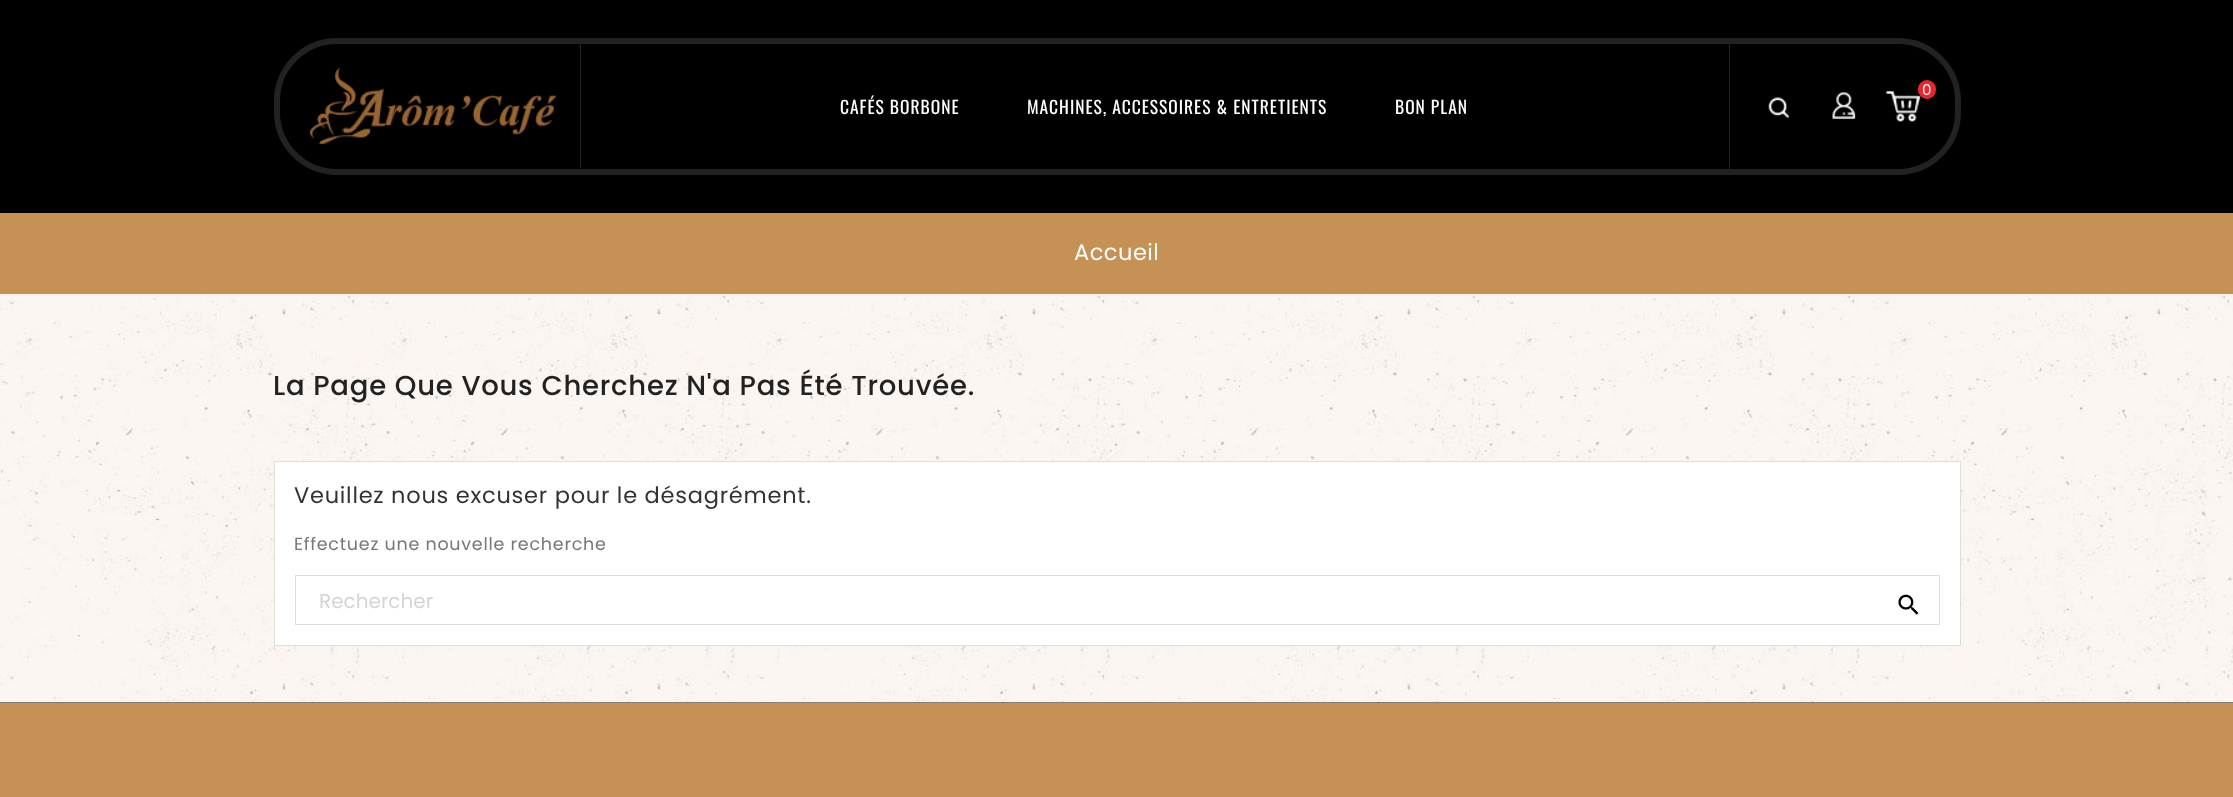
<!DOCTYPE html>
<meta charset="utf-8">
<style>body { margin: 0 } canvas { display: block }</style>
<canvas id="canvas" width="2233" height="797"></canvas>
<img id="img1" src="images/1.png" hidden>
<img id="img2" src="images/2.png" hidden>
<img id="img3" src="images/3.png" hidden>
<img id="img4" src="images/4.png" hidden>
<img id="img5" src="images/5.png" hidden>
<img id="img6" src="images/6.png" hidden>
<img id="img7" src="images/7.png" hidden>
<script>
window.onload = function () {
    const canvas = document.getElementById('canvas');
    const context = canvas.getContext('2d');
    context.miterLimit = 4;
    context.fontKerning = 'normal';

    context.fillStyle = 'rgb(255, 255, 255)';
    context.fillRect(0, 0, 2233, 797);
    context.drawImage(document.getElementById('img1'), 0, 294, 2233, 409);
    context.fillStyle = 'rgb(0, 0, 0)';
    context.fillRect(0, 0, 2233, 213);
    context.beginPath();
    context.roundRect(277, 41, 1681, 131, 60);
    context.strokeStyle = 'rgb(34, 34, 34)';
    context.lineWidth = 6;
    context.stroke();
    context.fillStyle = 'rgb(34, 34, 34)';
    context.fillRect(580, 44, 1, 124);
    context.drawImage(document.getElementById('img2'), 309, 67, 249, 77);
    context.fillRect(1729, 44, 1, 125);
    context.drawImage(document.getElementById('img3'), 1886, 91, 35, 31);
    context.fillStyle = 'rgb(231, 39, 45)';
    context.beginPath();
    context.roundRect(1918, 80, 18, 19, 9);
    context.fill();
    context.drawImage(document.getElementById('img4'), 1768, 97, 22, 22);
    context.drawImage(document.getElementById('img5'), 1832, 91, 24, 28);
    context.fillStyle = 'rgb(198, 145, 85)';
    context.fillRect(0, 213, 2233, 81);
    context.fillStyle = 'rgb(255, 255, 255)';
    context.beginPath();
    context.rect(274.5, 461.5, 1686, 184);
    context.fill();
    context.strokeStyle = 'rgb(225, 221, 216)';
    context.lineWidth = 1;
    context.stroke();
    context.strokeRect(295.5, 575.5, 1644, 49);
    context.drawImage(document.getElementById('img6'), 1898, 594, 21, 21);
    context.drawImage(document.getElementById('img7'), 0, 702, 2233, 1);
    context.fillStyle = 'rgb(198, 145, 85)';
    context.fillRect(0, 703, 2233, 94);
    context.font = '15px Poppins';
    context.fillStyle = 'rgb(255, 255, 255)';
    context.fillText('0', 1922, 95);
    context.letterSpacing = '1px';
    context.font = '17.5px Oswald';
    context.fillText('CAFÉS BORBONE', 840, 114);
    context.fillText('MACHINES, ACCESSOIRES & ENTRETIENTS', 1027, 114);
    context.fillText('BON PLAN', 1395, 114);
    context.letterSpacing = '0.5px';
    context.font = '22.5px Poppins';
    context.fillText('Accueil', 1074, 260);
    context.letterSpacing = '0.75px';
    context.font = '500 27.5px Poppins';
    context.fillStyle = 'rgb(34, 34, 34)';
    context.fillText('La Page Que Vous Cherchez N\'a Pas Été Trouvée.', 273, 395);
    context.font = '22.5px Poppins';
    context.fillStyle = 'rgb(51, 51, 51)';
    context.fillText('Veuillez nous excuser pour le désagrément.', 294, 503);
    context.font = '17.5px Poppins';
    context.fillStyle = 'rgb(119, 119, 119)';
    context.fillText('Effectuez une nouvelle recherche', 294, 550);
    context.letterSpacing = '0px';
    context.font = '20px Poppins';
    context.fillStyle = 'rgb(214, 213, 211)';
    context.fillText('Rechercher', 319, 608);
};
</script>
